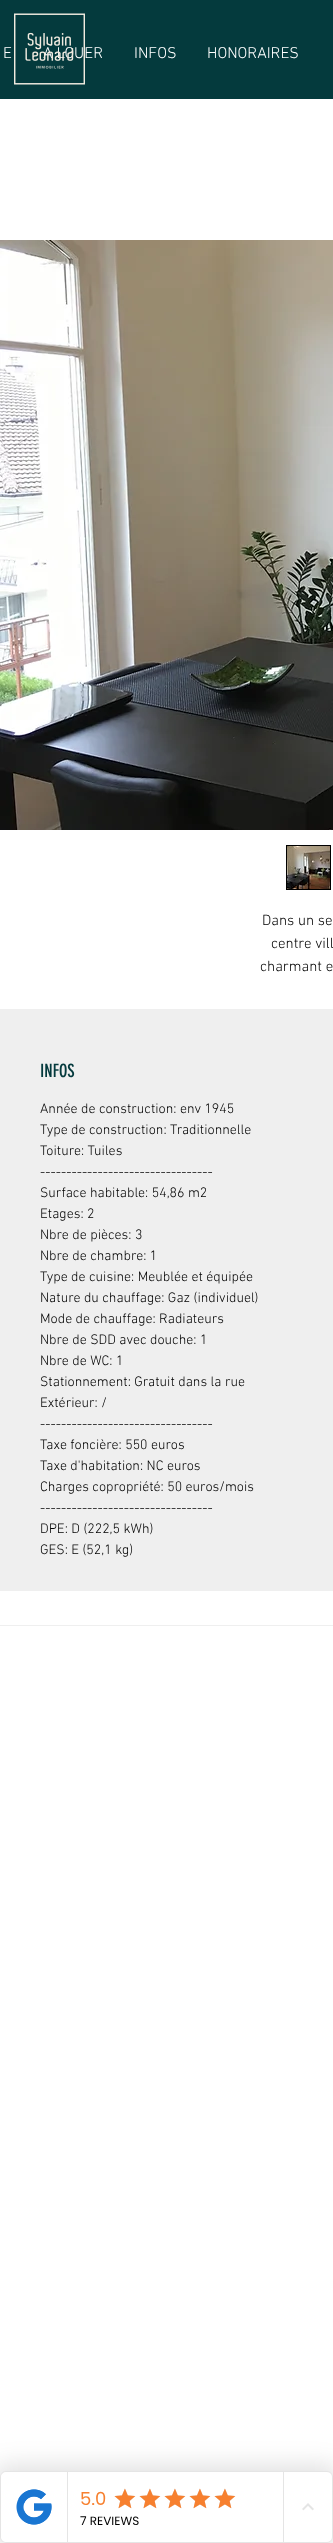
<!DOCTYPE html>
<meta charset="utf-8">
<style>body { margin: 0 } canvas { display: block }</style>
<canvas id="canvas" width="333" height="2543"></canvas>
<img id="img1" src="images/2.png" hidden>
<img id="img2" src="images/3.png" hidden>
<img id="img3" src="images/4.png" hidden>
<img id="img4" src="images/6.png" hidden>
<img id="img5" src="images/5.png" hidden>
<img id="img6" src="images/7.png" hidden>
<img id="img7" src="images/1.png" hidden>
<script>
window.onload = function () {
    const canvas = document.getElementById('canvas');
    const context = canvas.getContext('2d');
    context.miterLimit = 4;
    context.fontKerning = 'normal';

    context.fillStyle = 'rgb(255, 255, 255)';
    context.fillRect(0, 0, 333, 2543);
    context.fillStyle = 'rgb(4, 58, 61)';
    context.fillRect(0, 0, 333, 99);
    context.drawImage(document.getElementById('img1'), 0, 240, 333, 590);
    context.strokeStyle = 'rgb(0, 0, 0)';
    context.strokeRect(286.5, 845.5, 44, 44);
    context.drawImage(document.getElementById('img2'), 287, 846, 43, 43);
    context.fillStyle = 'rgb(239, 239, 239)';
    context.fillRect(0, 1009, 333, 582);
    context.fillRect(0, 1625, 333, 1);
    context.fillStyle = 'rgba(0, 0, 0, 0.12)';
    context.filter = 'blur(12px)';
    context.beginPath();
    context.roundRect(-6, 2465, 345, 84, 12);
    context.fill();
    context.filter = 'none';
    context.fillStyle = 'rgb(255, 255, 255)';
    context.beginPath();
    context.roundRect(0.5, 2471.5, 332, 71, 5.5);
    context.fill();
    context.strokeStyle = 'rgb(229, 229, 229)';
    context.stroke();
    context.beginPath();
    context.roundRect(1, 2472, 67, 70, [6, 0, 0, 6]);
    context.fill();
    context.fillStyle = 'rgb(229, 229, 229)';
    context.fillRect(67, 2472, 1, 70);
    context.drawImage(document.getElementById('img3'), 16, 2489, 36, 36);
    context.fillRect(283, 2472, 1, 70);
    context.drawImage(document.getElementById('img4'), 114, 2489, 21, 19);
    context.drawImage(document.getElementById('img5'), 114, 2488, 22, 21);
    context.drawImage(document.getElementById('img4'), 139, 2489, 21, 19);
    context.drawImage(document.getElementById('img5'), 139, 2488, 22, 21);
    context.drawImage(document.getElementById('img4'), 164, 2489, 21, 19);
    context.drawImage(document.getElementById('img5'), 164, 2488, 22, 21);
    context.drawImage(document.getElementById('img4'), 189, 2489, 21, 19);
    context.drawImage(document.getElementById('img5'), 189, 2488, 22, 21);
    context.drawImage(document.getElementById('img4'), 214, 2489, 21, 19);
    context.drawImage(document.getElementById('img5'), 214, 2488, 22, 21);
    context.drawImage(document.getElementById('img6'), 302, 2503, 12, 8);
    context.font = '300 16px "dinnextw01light"';
    context.fillStyle = 'rgb(255, 255, 255)';
    context.fillText('E', 3, 58);
    context.fillText('A LOUER', 43, 58);
    context.drawImage(document.getElementById('img7'), 14, 13, 71, 72);
    context.fillText('INFOS', 134, 58);
    context.fillText('HONORAIRES', 207, 58);
    context.font = '300 15px "dinnextw01light"';
    context.fillStyle = 'rgb(0, 0, 0)';
    context.fillText('Dans un se', 262, 925);
    context.fillText('centre vill', 271, 948);
    context.fillText('charmant e', 260, 971);
    context.font = '18px "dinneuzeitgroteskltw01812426"';
    context.fillStyle = 'rgb(4, 58, 61)';
    context.fillText('INFOS', 40, 1077);
    context.font = '300 14px "dinnextw01light"';
    context.fillStyle = 'rgb(0, 0, 0)';
    context.fillText('Année de construction: env 1945', 40, 1113);
    context.fillText('Type de construction: Traditionnelle', 40, 1134);
    context.fillText('Toiture: Tuiles', 40, 1155);
    context.fillText('---------------------------------', 40, 1176);
    context.fillText('Surface habitable: 54,86 m2', 40, 1197);
    context.fillText('Etages: 2', 40, 1218);
    context.fillText('Nbre de pièces: 3', 40, 1239);
    context.fillText('Nbre de chambre: 1', 40, 1260);
    context.fillText('Type de cuisine: Meublée et équipée', 40, 1281);
    context.fillText('Nature du chauffage: Gaz (individuel)', 40, 1302);
    context.fillText('Mode de chauffage: Radiateurs', 40, 1323);
    context.fillText('Nbre de SDD avec douche: 1', 40, 1344);
    context.fillText('Nbre de WC: 1', 40, 1365);
    context.fillText('Stationnement: Gratuit dans la rue', 40, 1386);
    context.fillText('Extérieur: /', 40, 1407);
    context.fillText('---------------------------------', 40, 1428);
    context.fillText('Taxe foncière: 550 euros', 40, 1449);
    context.fillText('Taxe d\'habitation: NC euros', 40, 1470);
    context.fillText('Charges copropriété: 50 euros/mois', 40, 1491);
    context.fillText('---------------------------------', 40, 1512);
    context.fillText('DPE: D (222,5 kWh)', 40, 1533);
    context.fillText('GES: E (52,1 kg)', 40, 1554);
    context.font = '18px Poppins';
    context.fillStyle = 'rgb(247, 128, 47)';
    context.fillText('5.0', 80, 2505);
    context.font = '12px Poppins';
    context.fillStyle = 'rgb(0, 0, 0)';
    context.fillText('7 REVIEWS', 80, 2525);
};
</script>
